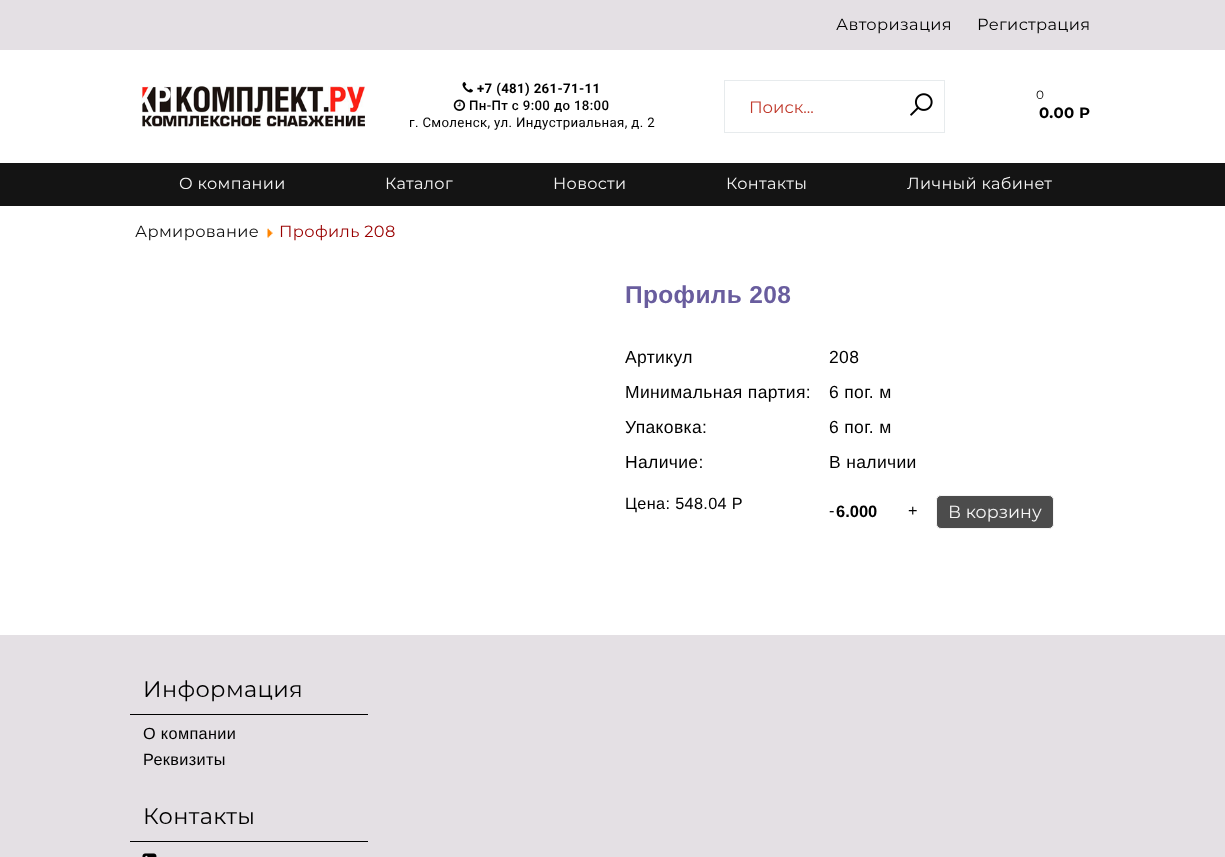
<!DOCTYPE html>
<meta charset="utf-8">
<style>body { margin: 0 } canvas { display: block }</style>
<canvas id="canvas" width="1225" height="857"></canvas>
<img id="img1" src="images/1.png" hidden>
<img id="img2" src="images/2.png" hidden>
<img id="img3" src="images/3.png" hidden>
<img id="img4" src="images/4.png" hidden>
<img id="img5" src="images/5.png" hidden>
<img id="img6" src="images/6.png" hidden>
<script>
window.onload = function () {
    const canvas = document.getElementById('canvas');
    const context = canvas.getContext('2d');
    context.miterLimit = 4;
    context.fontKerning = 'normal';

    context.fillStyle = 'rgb(228, 224, 228)';
    context.fillRect(0, 0, 1225, 857);
    context.fillStyle = 'rgb(255, 255, 255)';
    context.fillRect(0, 50, 1225, 585);
    context.drawImage(document.getElementById('img1'), 141, 86, 224, 41);
    context.drawImage(document.getElementById('img2'), 462, 82, 11, 11);
    context.drawImage(document.getElementById('img3'), 453, 99, 13, 12);
    context.strokeStyle = 'rgb(231, 235, 237)';
    context.strokeRect(724.5, 80.5, 220, 52);
    context.drawImage(document.getElementById('img4'), 910, 93, 23, 23);
    context.fillStyle = 'rgb(20, 20, 20)';
    context.fillRect(0, 163, 1225, 43);
    context.drawImage(document.getElementById('img5'), 267, 228, 6, 10);
    context.fillStyle = 'rgb(76, 76, 76)';
    context.beginPath();
    context.roundRect(936.5, 495.5, 117, 33, 4.5);
    context.fill();
    context.strokeStyle = 'rgb(245, 245, 245)';
    context.stroke();
    context.fillStyle = 'rgb(0, 0, 0)';
    context.fillRect(130, 714, 238, 1);
    context.fillRect(130, 841, 238, 1);
    context.drawImage(document.getElementById('img6'), 142, 853, 15, 4);
    context.letterSpacing = '0.35px';
    context.font = '16.25px Montserrat';
    context.fillText('Авторизация', 836, 30);
    context.fillText('Регистрация', 977, 30);
    context.font = 'bold 13.25px Roboto';
    context.fillText('+7 (481) 261-71-11', 477, 93);
    context.font = '500 13.25px Roboto';
    context.fillText('Пн-Пт с 9:00 до 18:00', 469, 110);
    context.font = '13.25px Roboto';
    context.fillText('г. Смоленск, ул. Индустриальная, д. 2', 409, 127);
    context.letterSpacing = '0px';
    context.font = '16.5px Montserrat';
    context.fillStyle = 'rgb(192, 57, 43)';
    context.fillText('Поиск...', 749, 113);
    context.letterSpacing = '0.35px';
    context.font = '12px Montserrat';
    context.fillStyle = 'rgb(0, 0, 0)';
    context.fillText('0', 1036, 99);
    context.font = 'bold 15px Montserrat';
    context.fillText('0.00 Р', 1039, 118);
    context.font = '16.1px Montserrat';
    context.fillStyle = 'rgb(245, 245, 245)';
    context.fillText('О компании', 179, 189);
    context.fillText('Каталог', 385, 189);
    context.fillText('Новости', 553, 189);
    context.fillText('Контакты', 726, 189);
    context.fillText('Личный кабинет', 907, 189);
    context.font = '16.25px Montserrat';
    context.fillStyle = 'rgb(15, 15, 15)';
    context.fillText('Армирование', 135, 237);
    context.fillStyle = 'rgb(153, 0, 0)';
    context.fillText('Профиль 208', 279, 237);
    context.font = 'bold 24.5px Liberation Sans';
    context.fillStyle = 'rgb(105, 93, 158)';
    context.fillText('Профиль 208', 625, 303);
    context.font = '17.5px Liberation Sans';
    context.fillStyle = 'rgb(0, 0, 0)';
    context.fillText('Артикул', 625, 363);
    context.fillText('208', 829, 363);
    context.fillText('Минимальная партия:', 625, 398);
    context.fillText('6 пог. м', 829, 398);
    context.fillText('Упаковка:', 625, 433);
    context.fillText('6 пог. м', 829, 433);
    context.fillText('Наличие:', 625, 468);
    context.fillText('В наличии', 829, 468);
    context.font = '16.25px Liberation Sans';
    context.fillText('Цена: 548.04 Р', 625, 509);
    context.fillText('-', 829, 516);
    context.letterSpacing = '0px';
    context.font = 'bold 16.5px Liberation Sans';
    context.fillText('6.000', 836, 517);
    context.letterSpacing = '0.35px';
    context.font = '16.25px Liberation Sans';
    context.fillText('+', 908, 516);
    context.letterSpacing = '0px';
    context.font = '17.5px Montserrat';
    context.fillStyle = 'rgb(245, 245, 245)';
    context.fillText('В корзину', 948, 518);
    context.letterSpacing = '0.35px';
    context.font = '22.5px Montserrat';
    context.fillStyle = 'rgb(0, 0, 0)';
    context.fillText('Информация', 143, 697);
    context.font = '16.25px Liberation Sans';
    context.fillText('О компании', 143, 739);
    context.fillText('Реквизиты', 143, 765);
    context.font = '22.5px Montserrat';
    context.fillText('Контакты', 143, 824);
};
</script>
